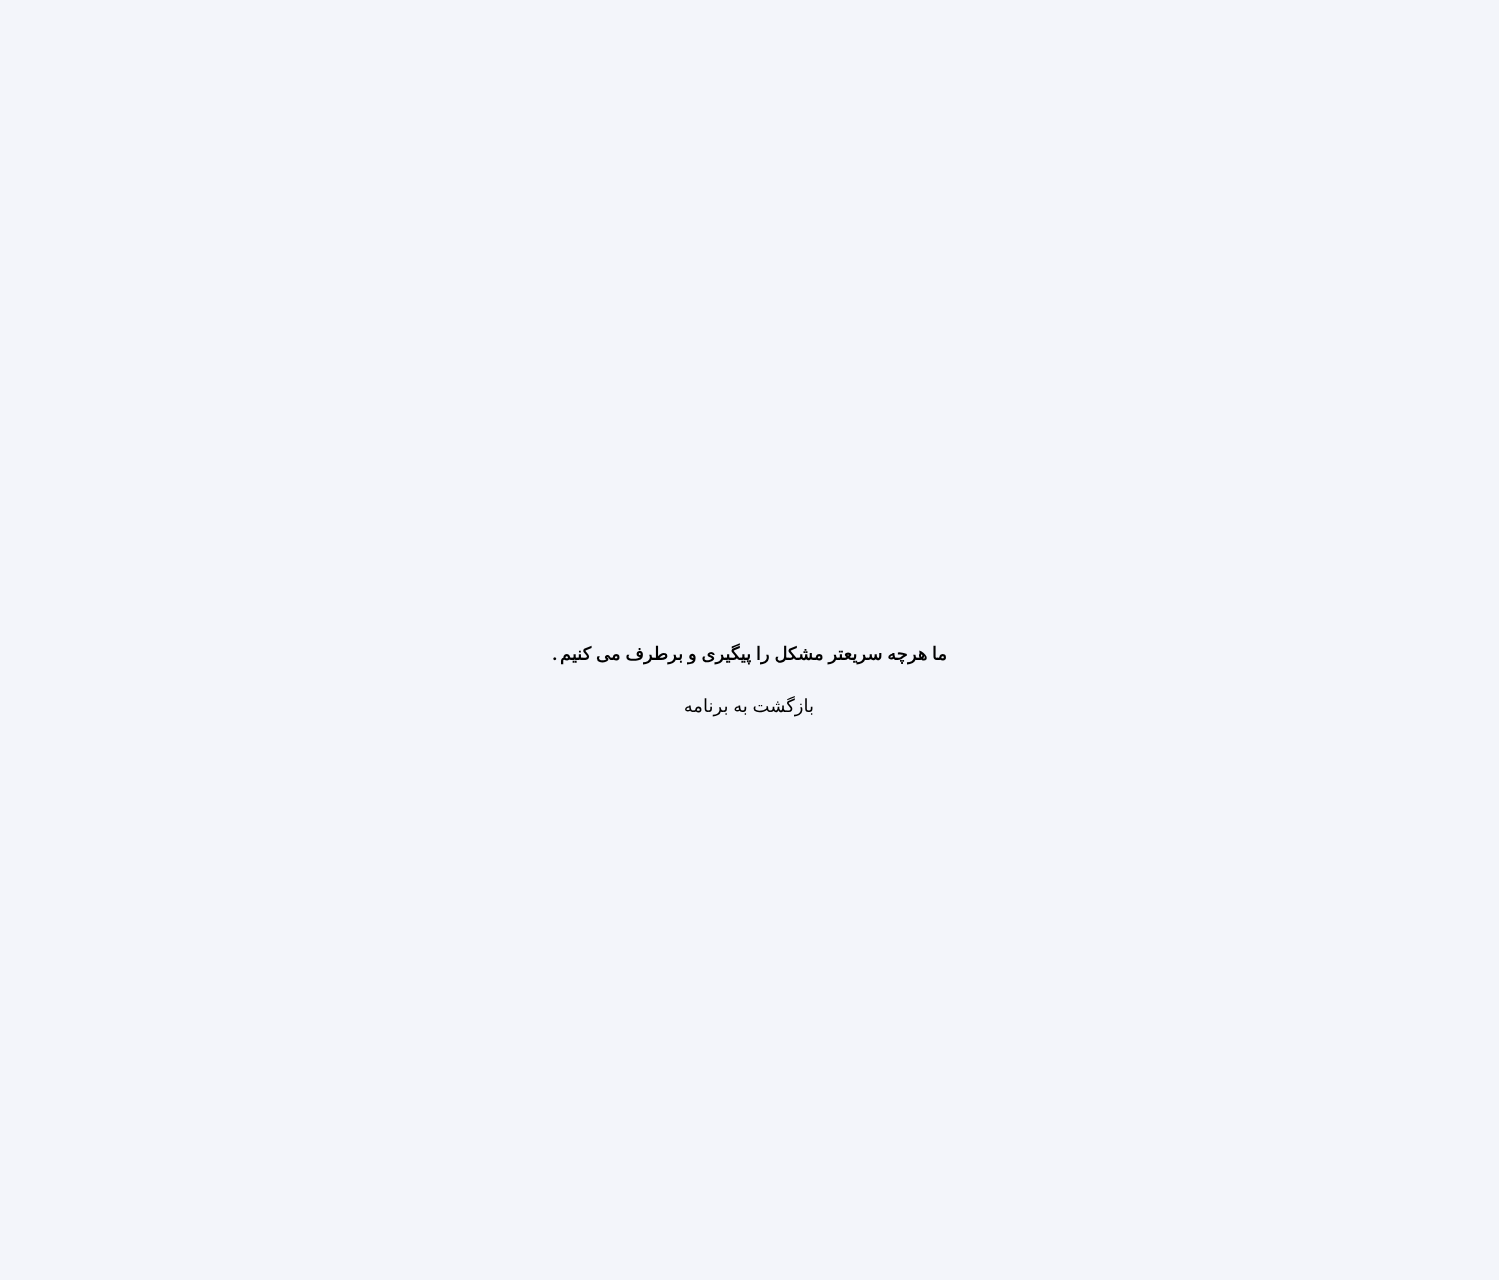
<!DOCTYPE html>
<meta charset="utf-8">
<style>body { margin: 0 } canvas { display: block }</style>
<canvas id="canvas" width="1499" height="1280"></canvas>
<script>
window.onload = function () {
    const canvas = document.getElementById('canvas');
    const context = canvas.getContext('2d');
    context.miterLimit = 4;
    context.fontKerning = 'normal';

    context.fillStyle = 'rgb(243, 245, 250)';
    context.fillRect(0, 0, 1499, 1280);
    context.wordSpacing = '-1px';
    context.direction = 'rtl';
    context.font = 'bold 18px DejaVu Sans';
    context.fillStyle = 'rgb(0, 0, 0)';
    context.fillText('ما هرچه سریعتر مشکل را پیگیری و برطرف می کنیم', 947, 660);
    context.wordSpacing = '0px';
    context.font = 'bold 18px Liberation Serif';
    context.fillText('.', 557, 660);
    context.wordSpacing = '-1px';
    context.font = '18px DejaVu Sans';
    context.fillText('بازگشت به برنامه', 814, 712);
};
</script>
